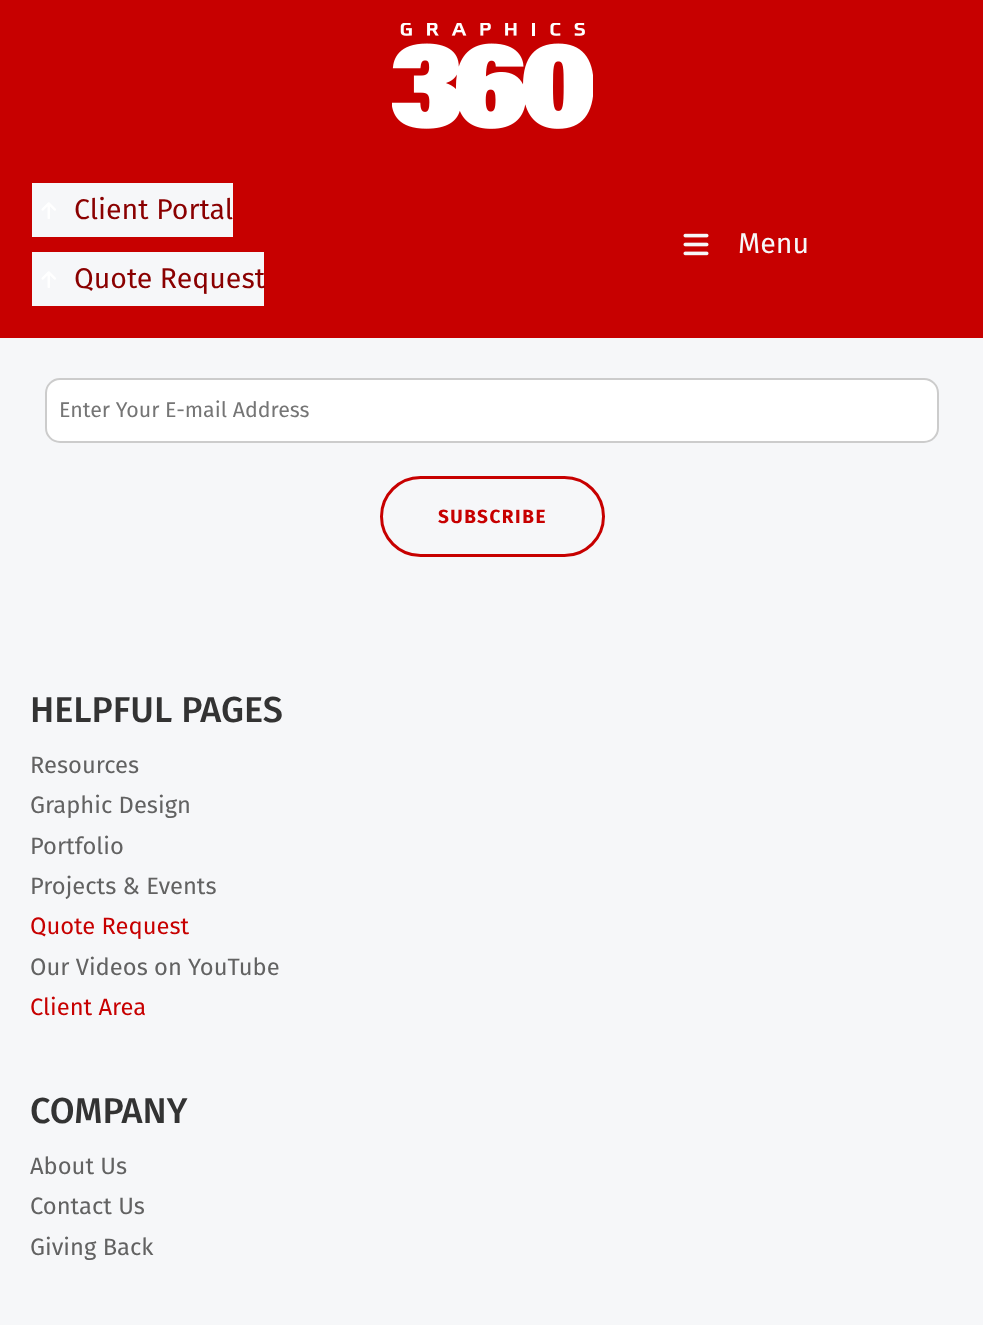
<!DOCTYPE html>
<meta charset="utf-8">
<style>body { margin: 0 } canvas { display: block }</style>
<canvas id="canvas" width="983" height="1325"></canvas>
<img id="img1" src="images/1.png" hidden>
<img id="img2" src="images/2.png" hidden>
<img id="img3" src="images/3.png" hidden>
<script>
window.onload = function () {
    const canvas = document.getElementById('canvas');
    const context = canvas.getContext('2d');
    context.miterLimit = 4;
    context.fontKerning = 'normal';

    context.fillStyle = 'rgb(246, 247, 249)';
    context.fillRect(0, 0, 983, 1325);
    context.fillStyle = 'rgb(199, 0, 0)';
    context.fillRect(0, 0, 983, 338);
    context.drawImage(document.getElementById('img1'), 392, 23, 201, 106);
    context.fillStyle = 'rgb(246, 247, 249)';
    context.fillRect(32, 183, 201, 54);
    context.drawImage(document.getElementById('img2'), 41, 202, 15, 17);
    context.fillRect(32, 252, 232, 54);
    context.drawImage(document.getElementById('img2'), 41, 271, 15, 17);
    context.drawImage(document.getElementById('img3'), 683, 233, 26, 23);
    context.fillStyle = 'rgb(255, 255, 255)';
    context.beginPath();
    context.roundRect(46, 379, 892, 63, 14);
    context.fill();
    context.strokeStyle = 'rgb(204, 204, 204)';
    context.lineWidth = 2;
    context.stroke();
    context.beginPath();
    context.roundRect(381.5, 477.5, 222, 78, 39);
    context.strokeStyle = 'rgb(199, 0, 0)';
    context.lineWidth = 3;
    context.stroke();
    context.font = '28.5px Fira Sans';
    context.fillStyle = 'rgb(138, 0, 0)';
    context.fillText('Client Portal', 74, 219);
    context.fillText('Quote Request', 74, 288);
    context.fillStyle = 'rgb(246, 247, 249)';
    context.fillText('Menu', 738, 253);
    context.font = '21.4px Fira Sans';
    context.fillStyle = 'rgb(117, 117, 117)';
    context.fillText('Enter Your E-mail Address', 59, 417);
    context.letterSpacing = '1.5px';
    context.font = 'bold 19px Fira Sans';
    context.fillStyle = 'rgb(199, 0, 0)';
    context.fillText('SUBSCRIBE', 438, 523);
    context.letterSpacing = '0px';
    context.font = '500 36px Fira Sans';
    context.fillStyle = 'rgb(51, 51, 51)';
    context.fillText('HELPFUL PAGES', 30, 722);
    context.font = '23.75px Fira Sans';
    context.fillStyle = 'rgb(98, 98, 98)';
    context.fillText('Resources', 30, 773);
    context.fillText('Graphic Design', 30, 813);
    context.fillText('Portfolio', 30, 854);
    context.fillText('Projects & Events', 30, 894);
    context.fillStyle = 'rgb(199, 0, 0)';
    context.fillText('Quote Request', 30, 934);
    context.fillStyle = 'rgb(98, 98, 98)';
    context.fillText('Our Videos on YouTube', 30, 975);
    context.fillStyle = 'rgb(199, 0, 0)';
    context.fillText('Client Area', 30, 1015);
    context.font = '500 36px Fira Sans';
    context.fillStyle = 'rgb(51, 51, 51)';
    context.fillText('COMPANY', 30, 1123);
    context.font = '23.75px Fira Sans';
    context.fillStyle = 'rgb(98, 98, 98)';
    context.fillText('About Us', 30, 1174);
    context.fillText('Contact Us', 30, 1214);
    context.fillText('Giving Back', 30, 1255);
};
</script>
